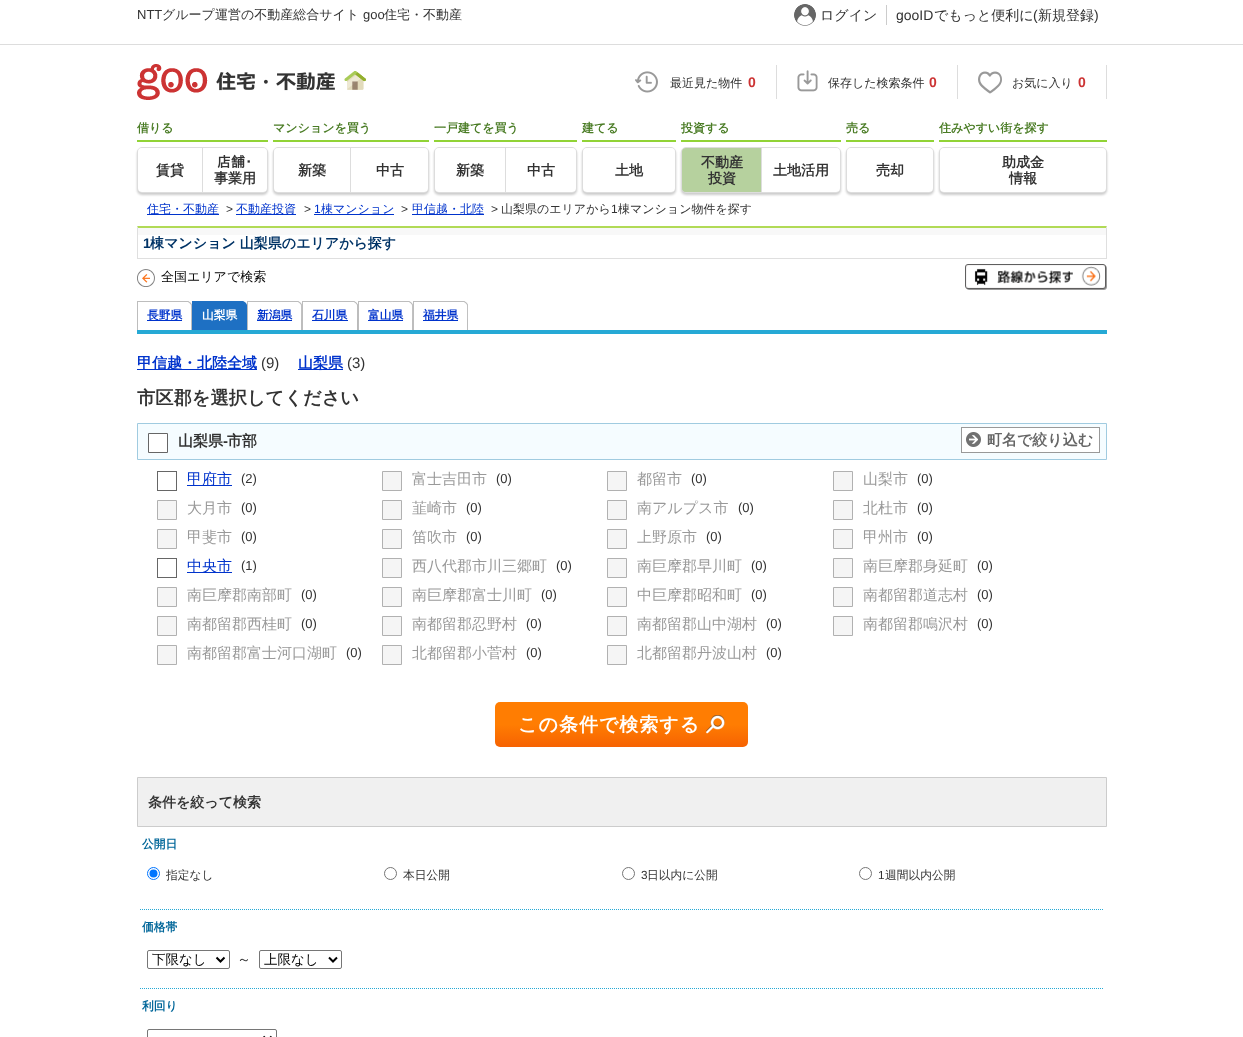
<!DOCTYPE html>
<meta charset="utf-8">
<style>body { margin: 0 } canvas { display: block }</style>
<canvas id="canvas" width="1243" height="1037"></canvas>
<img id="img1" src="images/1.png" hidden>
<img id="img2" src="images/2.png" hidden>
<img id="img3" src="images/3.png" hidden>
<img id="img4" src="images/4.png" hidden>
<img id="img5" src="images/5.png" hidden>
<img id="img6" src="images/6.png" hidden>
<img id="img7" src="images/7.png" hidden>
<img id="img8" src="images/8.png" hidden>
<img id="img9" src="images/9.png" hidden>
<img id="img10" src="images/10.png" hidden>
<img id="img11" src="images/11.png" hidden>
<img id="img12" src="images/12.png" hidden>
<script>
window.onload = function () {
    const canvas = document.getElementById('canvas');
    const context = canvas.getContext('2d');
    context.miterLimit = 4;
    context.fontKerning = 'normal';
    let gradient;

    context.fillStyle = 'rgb(255, 255, 255)';
    context.fillRect(0, 0, 1243, 1037);
    context.fillStyle = 'rgb(221, 221, 221)';
    context.fillRect(0, 44, 1243, 1);
    context.drawImage(document.getElementById('img1'), 794, 4, 22, 22);
    context.fillStyle = 'rgb(204, 204, 204)';
    context.fillRect(886, 5, 1, 20);
    context.drawImage(document.getElementById('img2'), 137, 64, 229, 36);
    context.drawImage(document.getElementById('img3'), 635, 71, 23, 22);
    context.fillStyle = 'rgb(221, 221, 221)';
    context.fillRect(776, 65, 1, 34);
    context.drawImage(document.getElementById('img4'), 797, 70, 21, 22);
    context.fillRect(957, 65, 1, 34);
    context.drawImage(document.getElementById('img5'), 978, 71, 24, 23);
    context.fillRect(1106, 65, 1, 34);
    context.fillStyle = 'rgb(145, 211, 54)';
    context.fillRect(137, 140, 131, 2);
    context.fillStyle = 'rgba(0, 0, 0, 0.2)';
    context.filter = 'blur(1px)';
    context.beginPath();
    context.roundRect(137, 149, 131, 46, 5);
    context.fill();
    context.filter = 'none';
    context.beginPath();
    context.roundRect(137.5, 147.5, 130, 45, 4.5);
    context.strokeStyle = 'rgb(221, 221, 221)';
    context.stroke();
    context.fillStyle = 'rgb(255, 255, 255)';
    context.beginPath();
    context.roundRect(138, 148, 64, 44, [4, 0, 0, 4]);
    context.fill();
    context.beginPath();
    context.roundRect(202, 148, 65, 44, [0, 4, 4, 0]);
    context.fill();
    context.fillStyle = 'rgb(221, 221, 221)';
    context.fillRect(202, 148, 1, 44);
    context.fillStyle = 'rgb(145, 211, 54)';
    context.fillRect(273, 140, 156, 2);
    context.fillStyle = 'rgba(0, 0, 0, 0.2)';
    context.filter = 'blur(1px)';
    context.beginPath();
    context.roundRect(273, 149, 156, 46, 5);
    context.fill();
    context.filter = 'none';
    context.beginPath();
    context.roundRect(273.5, 147.5, 155, 45, 4.5);
    context.stroke();
    context.fillStyle = 'rgb(255, 255, 255)';
    context.beginPath();
    context.roundRect(274, 148, 76, 44, [4, 0, 0, 4]);
    context.fill();
    context.beginPath();
    context.roundRect(350, 148, 78, 44, [0, 4, 4, 0]);
    context.fill();
    context.fillStyle = 'rgb(221, 221, 221)';
    context.fillRect(350, 148, 1, 44);
    context.fillStyle = 'rgb(145, 211, 54)';
    context.fillRect(434, 140, 143, 2);
    context.fillStyle = 'rgba(0, 0, 0, 0.2)';
    context.filter = 'blur(1px)';
    context.beginPath();
    context.roundRect(434, 149, 143, 46, 5);
    context.fill();
    context.filter = 'none';
    context.beginPath();
    context.roundRect(434.5, 147.5, 142, 45, 4.5);
    context.stroke();
    context.fillStyle = 'rgb(255, 255, 255)';
    context.beginPath();
    context.roundRect(435, 148, 70, 44, [4, 0, 0, 4]);
    context.fill();
    context.beginPath();
    context.roundRect(505, 148, 71, 44, [0, 4, 4, 0]);
    context.fill();
    context.fillStyle = 'rgb(221, 221, 221)';
    context.fillRect(505, 148, 1, 44);
    context.fillStyle = 'rgb(145, 211, 54)';
    context.fillRect(582, 140, 94, 2);
    context.fillStyle = 'rgba(0, 0, 0, 0.2)';
    context.filter = 'blur(1px)';
    context.beginPath();
    context.roundRect(582, 149, 94, 46, 5);
    context.fill();
    context.filter = 'none';
    context.beginPath();
    context.roundRect(582.5, 147.5, 93, 45, 4.5);
    context.stroke();
    context.fillStyle = 'rgb(255, 255, 255)';
    context.beginPath();
    context.roundRect(583, 148, 92, 44, 4);
    context.fill();
    context.fillStyle = 'rgb(145, 211, 54)';
    context.fillRect(681, 140, 160, 2);
    context.fillStyle = 'rgba(0, 0, 0, 0.2)';
    context.filter = 'blur(1px)';
    context.beginPath();
    context.roundRect(681, 149, 160, 46, 5);
    context.fill();
    context.filter = 'none';
    context.beginPath();
    context.roundRect(681.5, 147.5, 159, 45, 4.5);
    context.stroke();
    context.fillStyle = 'rgb(182, 209, 158)';
    context.beginPath();
    context.roundRect(682, 148, 79, 44, [4, 0, 0, 4]);
    context.fill();
    context.fillStyle = 'rgb(255, 255, 255)';
    context.beginPath();
    context.roundRect(761, 148, 79, 44, [0, 4, 4, 0]);
    context.fill();
    context.fillStyle = 'rgb(221, 221, 221)';
    context.fillRect(761, 148, 1, 44);
    context.fillStyle = 'rgb(145, 211, 54)';
    context.fillRect(846, 140, 88, 2);
    context.fillStyle = 'rgba(0, 0, 0, 0.2)';
    context.filter = 'blur(1px)';
    context.beginPath();
    context.roundRect(846, 149, 88, 46, 5);
    context.fill();
    context.filter = 'none';
    context.beginPath();
    context.roundRect(846.5, 147.5, 87, 45, 4.5);
    context.stroke();
    context.fillStyle = 'rgb(255, 255, 255)';
    context.beginPath();
    context.roundRect(847, 148, 86, 44, 4);
    context.fill();
    context.fillStyle = 'rgb(145, 211, 54)';
    context.fillRect(939, 140, 168, 2);
    context.fillStyle = 'rgba(0, 0, 0, 0.2)';
    context.filter = 'blur(1px)';
    context.beginPath();
    context.roundRect(939, 149, 168, 46, 5);
    context.fill();
    context.filter = 'none';
    context.beginPath();
    context.roundRect(939.5, 147.5, 167, 45, 4.5);
    context.stroke();
    context.fillStyle = 'rgb(255, 255, 255)';
    context.beginPath();
    context.roundRect(940, 148, 166, 44, 4);
    context.fill();
    context.fillStyle = 'rgb(0, 51, 204)';
    context.fillRect(147, 214, 72, 1);
    context.fillRect(236, 214, 60, 1);
    context.fillRect(314, 214, 80, 1);
    context.fillRect(412, 214, 72, 1);
    context.fillStyle = 'rgb(248, 248, 248)';
    context.fillRect(137, 228, 970, 7);
    context.fillStyle = 'rgb(177, 218, 86)';
    context.beginPath();
    context.moveTo(137, 226);
    context.lineTo(1107, 226);
    context.lineTo(1106, 228);
    context.lineTo(138, 228);
    context.closePath();
    context.fill();
    context.fillStyle = 'rgb(223, 223, 223)';
    context.beginPath();
    context.moveTo(1107, 226);
    context.lineTo(1107, 259);
    context.lineTo(1106, 258);
    context.lineTo(1106, 228);
    context.closePath();
    context.fill();
    context.fillRect(137, 258, 970, 1);
    context.beginPath();
    context.moveTo(137, 259);
    context.lineTo(137, 226);
    context.lineTo(138, 228);
    context.lineTo(138, 258);
    context.closePath();
    context.fill();
    context.drawImage(document.getElementById('img6'), 137, 269, 18, 18);
    context.drawImage(document.getElementById('img7'), 965, 264, 142, 26);
    context.fillStyle = 'rgb(189, 189, 189)';
    context.fillRect(137, 301, 1, 29);
    context.drawImage(document.getElementById('img8'), 138, 301, 54, 29);
    context.fillStyle = 'rgb(0, 51, 204)';
    context.fillRect(147, 320, 35, 1);
    context.fillStyle = 'rgb(30, 112, 195)';
    context.fillRect(192, 301, 1, 29);
    context.drawImage(document.getElementById('img9'), 193, 301, 54, 29);
    context.fillStyle = 'rgb(189, 189, 189)';
    context.fillRect(247, 301, 1, 29);
    context.drawImage(document.getElementById('img8'), 248, 301, 54, 29);
    context.fillStyle = 'rgb(0, 51, 204)';
    context.fillRect(257, 320, 35, 1);
    context.fillStyle = 'rgb(189, 189, 189)';
    context.fillRect(302, 301, 1, 29);
    context.drawImage(document.getElementById('img10'), 303, 301, 55, 29);
    context.fillStyle = 'rgb(0, 51, 204)';
    context.fillRect(312, 320, 36, 1);
    context.fillStyle = 'rgb(189, 189, 189)';
    context.fillRect(358, 301, 1, 29);
    context.drawImage(document.getElementById('img8'), 359, 301, 54, 29);
    context.fillStyle = 'rgb(0, 51, 204)';
    context.fillRect(368, 320, 35, 1);
    context.fillStyle = 'rgb(189, 189, 189)';
    context.fillRect(413, 301, 1, 29);
    context.drawImage(document.getElementById('img8'), 414, 301, 54, 29);
    context.fillStyle = 'rgb(0, 51, 204)';
    context.fillRect(423, 320, 35, 1);
    context.fillStyle = 'rgb(38, 169, 213)';
    context.fillRect(137, 330, 970, 4);
    context.fillStyle = 'rgb(0, 51, 204)';
    context.fillRect(137, 369, 120, 1);
    context.fillRect(298, 369, 45, 1);
    context.fillStyle = 'rgb(245, 252, 255)';
    context.beginPath();
    context.rect(137.5, 423.5, 969, 36);
    context.fill();
    context.strokeStyle = 'rgb(160, 203, 224)';
    context.stroke();
    context.fillStyle = 'rgb(255, 255, 255)';
    context.beginPath();
    context.rect(148.5, 433.5, 19, 19);
    context.fill();
    context.strokeStyle = 'rgb(102, 102, 102)';
    context.stroke();
    context.fillRect(962, 428, 137, 24);
    context.drawImage(document.getElementById('img11'), 966, 432, 15, 15);
    context.strokeStyle = 'rgb(153, 153, 153)';
    context.strokeRect(961.5, 427.5, 138, 25);
    context.strokeStyle = 'rgb(102, 102, 102)';
    context.strokeRect(157.5, 471.5, 19, 19);
    context.fillStyle = 'rgb(0, 51, 204)';
    context.fillRect(187, 485, 45, 1);
    context.fillStyle = 'rgb(245, 245, 245)';
    context.beginPath();
    context.rect(382.5, 471.5, 19, 19);
    context.fill();
    context.strokeStyle = 'rgb(177, 177, 177)';
    context.stroke();
    context.beginPath();
    context.rect(607.5, 471.5, 19, 19);
    context.fill();
    context.stroke();
    context.beginPath();
    context.rect(833.5, 471.5, 19, 19);
    context.fill();
    context.stroke();
    context.beginPath();
    context.rect(157.5, 500.5, 19, 19);
    context.fill();
    context.stroke();
    context.beginPath();
    context.rect(382.5, 500.5, 19, 19);
    context.fill();
    context.stroke();
    context.beginPath();
    context.rect(607.5, 500.5, 19, 19);
    context.fill();
    context.stroke();
    context.beginPath();
    context.rect(833.5, 500.5, 19, 19);
    context.fill();
    context.stroke();
    context.beginPath();
    context.rect(157.5, 529.5, 19, 19);
    context.fill();
    context.stroke();
    context.beginPath();
    context.rect(382.5, 529.5, 19, 19);
    context.fill();
    context.stroke();
    context.beginPath();
    context.rect(607.5, 529.5, 19, 19);
    context.fill();
    context.stroke();
    context.beginPath();
    context.rect(833.5, 529.5, 19, 19);
    context.fill();
    context.stroke();
    context.strokeStyle = 'rgb(102, 102, 102)';
    context.strokeRect(157.5, 558.5, 19, 19);
    context.fillStyle = 'rgb(0, 51, 204)';
    context.fillRect(187, 572, 45, 1);
    context.fillStyle = 'rgb(245, 245, 245)';
    context.beginPath();
    context.rect(382.5, 558.5, 19, 19);
    context.fill();
    context.strokeStyle = 'rgb(177, 177, 177)';
    context.stroke();
    context.beginPath();
    context.rect(607.5, 558.5, 19, 19);
    context.fill();
    context.stroke();
    context.beginPath();
    context.rect(833.5, 558.5, 19, 19);
    context.fill();
    context.stroke();
    context.beginPath();
    context.rect(157.5, 587.5, 19, 19);
    context.fill();
    context.stroke();
    context.beginPath();
    context.rect(382.5, 587.5, 19, 19);
    context.fill();
    context.stroke();
    context.beginPath();
    context.rect(607.5, 587.5, 19, 19);
    context.fill();
    context.stroke();
    context.beginPath();
    context.rect(833.5, 587.5, 19, 19);
    context.fill();
    context.stroke();
    context.beginPath();
    context.rect(157.5, 616.5, 19, 19);
    context.fill();
    context.stroke();
    context.beginPath();
    context.rect(382.5, 616.5, 19, 19);
    context.fill();
    context.stroke();
    context.beginPath();
    context.rect(607.5, 616.5, 19, 19);
    context.fill();
    context.stroke();
    context.beginPath();
    context.rect(833.5, 616.5, 19, 19);
    context.fill();
    context.stroke();
    context.beginPath();
    context.rect(157.5, 645.5, 19, 19);
    context.fill();
    context.stroke();
    context.beginPath();
    context.rect(382.5, 645.5, 19, 19);
    context.fill();
    context.stroke();
    context.beginPath();
    context.rect(607.5, 645.5, 19, 19);
    context.fill();
    context.stroke();
    gradient = context.createLinearGradient(622, 702, 622, 747);
    gradient.addColorStop(0, 'rgb(255, 125, 2)');
    gradient.addColorStop(0.5, 'rgb(255, 125, 2)');
    gradient.addColorStop(1, 'rgb(246, 98, 2)');
    context.fillStyle = gradient;
    context.beginPath();
    context.roundRect(495, 702, 253, 45, 5);
    context.fill();
    context.drawImage(document.getElementById('img12'), 706, 715, 19, 19);
    context.fillStyle = 'rgb(240, 240, 240)';
    context.beginPath();
    context.rect(137.5, 777.5, 969, 49);
    context.fill();
    context.strokeStyle = 'rgb(204, 204, 204)';
    context.stroke();
    context.beginPath();
    context.arc(153.5, 873.5, 6, 0, 2 * Math.PI);
    context.strokeStyle = 'rgb(0, 117, 255)';
    context.stroke();
    context.fillStyle = 'rgb(0, 117, 255)';
    context.beginPath();
    context.arc(153.5, 873.5, 4, 0, 2 * Math.PI);
    context.fill();
    context.beginPath();
    context.arc(390.5, 873.5, 6, 0, 2 * Math.PI);
    context.strokeStyle = 'rgb(118, 118, 118)';
    context.stroke();
    context.beginPath();
    context.arc(628.5, 873.5, 6, 0, 2 * Math.PI);
    context.stroke();
    context.beginPath();
    context.arc(865.5, 873.5, 6, 0, 2 * Math.PI);
    context.stroke();
    context.beginPath();
    context.moveTo(140, 909.5);
    context.lineTo(1104, 909.5);
    context.strokeStyle = 'rgb(38, 169, 213)';
    context.setLineDash([1, 1]);
    context.stroke();
    context.beginPath();
    context.roundRect(147.5, 950.5, 82, 18, 1.5);
    context.strokeStyle = 'rgb(118, 118, 118)';
    context.setLineDash([]);
    context.stroke();
    context.beginPath();
    context.moveTo(216.5, 957.5);
    context.lineTo(220.5, 961.5);
    context.lineTo(224.5, 957.5);
    context.strokeStyle = 'rgb(0, 0, 0)';
    context.lineWidth = 2;
    context.stroke();
    context.beginPath();
    context.roundRect(259.5, 950.5, 82, 18, 1.5);
    context.strokeStyle = 'rgb(118, 118, 118)';
    context.lineWidth = 1;
    context.stroke();
    context.beginPath();
    context.moveTo(329, 957.5);
    context.lineTo(333, 961.5);
    context.lineTo(337, 957.5);
    context.strokeStyle = 'rgb(0, 0, 0)';
    context.lineWidth = 2;
    context.stroke();
    context.beginPath();
    context.moveTo(140, 988.5);
    context.lineTo(1104, 988.5);
    context.strokeStyle = 'rgb(38, 169, 213)';
    context.lineWidth = 1;
    context.setLineDash([1, 1]);
    context.stroke();
    context.beginPath();
    context.roundRect(147.5, 1029.5, 129, 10, 1.5);
    context.strokeStyle = 'rgb(118, 118, 118)';
    context.setLineDash([]);
    context.stroke();
    context.beginPath();
    context.moveTo(263.5, 1036.5);
    context.lineTo(267.5, 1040.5);
    context.lineTo(271.5, 1036.5);
    context.strokeStyle = 'rgb(0, 0, 0)';
    context.lineWidth = 2;
    context.stroke();
    context.font = '13px Liberation Sans';
    context.fillStyle = 'rgb(51, 51, 51)';
    context.fillText('NTT', 137, 19);
    context.font = '500 13px WenQuanYi Zen Hei';
    context.fillText('グループ運営の不動産総合サイト', 162, 19);
    context.font = '13px Liberation Sans';
    context.fillText('goo', 363, 19);
    context.font = '500 13px WenQuanYi Zen Hei';
    context.fillText('住宅・不動産', 384, 19);
    context.font = '500 14px WenQuanYi Zen Hei';
    context.fillText('ログイン', 820, 20);
    context.font = '14px Liberation Sans';
    context.fillText('gooID', 896, 20);
    context.font = '500 14px WenQuanYi Zen Hei';
    context.fillText('でもっと便利に', 934, 20);
    context.font = '14px Liberation Sans';
    context.fillText('(', 1033, 20);
    context.font = '500 14px WenQuanYi Zen Hei';
    context.fillText('新規登録', 1038, 20);
    context.font = '14px Liberation Sans';
    context.fillText(')', 1094, 20);
    context.font = '500 12px WenQuanYi Zen Hei';
    context.fillText('最近見た物件', 670, 87);
    context.font = 'bold 14px Liberation Sans';
    context.fillStyle = 'rgb(204, 51, 51)';
    context.fillText('0', 748, 87);
    context.font = '500 12px WenQuanYi Zen Hei';
    context.fillStyle = 'rgb(51, 51, 51)';
    context.fillText('保存した検索条件', 828, 87);
    context.font = 'bold 14px Liberation Sans';
    context.fillStyle = 'rgb(204, 51, 51)';
    context.fillText('0', 929, 87);
    context.font = '500 12px WenQuanYi Zen Hei';
    context.fillStyle = 'rgb(51, 51, 51)';
    context.fillText('お気に入り', 1012, 87);
    context.font = 'bold 14px Liberation Sans';
    context.fillStyle = 'rgb(204, 51, 51)';
    context.fillText('0', 1078, 87);
    context.font = 'bold 12px WenQuanYi Zen Hei';
    context.fillStyle = 'rgb(74, 124, 37)';
    context.fillText('借りる', 137, 132);
    context.font = 'bold 14px WenQuanYi Zen Hei';
    context.fillStyle = 'rgb(51, 51, 51)';
    context.fillText('賃貸', 156, 175);
    context.font = 'bold 14px IPAPGothic';
    context.fillText('店舗･', 217, 167);
    context.font = 'bold 14px WenQuanYi Zen Hei';
    context.fillText('事業用', 214, 183);
    context.font = 'bold 12px WenQuanYi Zen Hei';
    context.fillStyle = 'rgb(74, 124, 37)';
    context.fillText('マンションを買う', 273, 132);
    context.font = 'bold 14px WenQuanYi Zen Hei';
    context.fillStyle = 'rgb(51, 51, 51)';
    context.fillText('新築', 298, 175);
    context.fillText('中古', 376, 175);
    context.font = 'bold 12px WenQuanYi Zen Hei';
    context.fillStyle = 'rgb(74, 124, 37)';
    context.fillText('一戸建てを買う', 434, 132);
    context.font = 'bold 14px WenQuanYi Zen Hei';
    context.fillStyle = 'rgb(51, 51, 51)';
    context.fillText('新築', 456, 175);
    context.fillText('中古', 527, 175);
    context.font = 'bold 12px WenQuanYi Zen Hei';
    context.fillStyle = 'rgb(74, 124, 37)';
    context.fillText('建てる', 582, 132);
    context.font = 'bold 14px WenQuanYi Zen Hei';
    context.fillStyle = 'rgb(51, 51, 51)';
    context.fillText('土地', 615, 175);
    context.font = 'bold 12px WenQuanYi Zen Hei';
    context.fillStyle = 'rgb(74, 124, 37)';
    context.fillText('投資する', 681, 132);
    context.font = 'bold 14px WenQuanYi Zen Hei';
    context.fillStyle = 'rgb(51, 51, 51)';
    context.fillText('不動産', 701, 167);
    context.fillText('投資', 708, 183);
    context.fillText('土地活用', 773, 175);
    context.font = 'bold 12px WenQuanYi Zen Hei';
    context.fillStyle = 'rgb(74, 124, 37)';
    context.fillText('売る', 846, 132);
    context.font = 'bold 14px WenQuanYi Zen Hei';
    context.fillStyle = 'rgb(51, 51, 51)';
    context.fillText('売却', 876, 175);
    context.font = 'bold 12px WenQuanYi Zen Hei';
    context.fillStyle = 'rgb(74, 124, 37)';
    context.fillText('住みやすい街を探す', 939, 132);
    context.font = 'bold 14px WenQuanYi Zen Hei';
    context.fillStyle = 'rgb(51, 51, 51)';
    context.fillText('助成金', 1002, 167);
    context.fillText('情報', 1009, 183);
    context.font = '500 12px WenQuanYi Zen Hei';
    context.fillStyle = 'rgb(0, 51, 204)';
    context.fillText('住宅・不動産', 147, 213);
    context.font = '12px Liberation Sans';
    context.fillStyle = 'rgb(51, 51, 51)';
    context.fillText('>', 226, 213);
    context.font = '500 12px WenQuanYi Zen Hei';
    context.fillStyle = 'rgb(0, 51, 204)';
    context.fillText('不動産投資', 236, 213);
    context.font = '12px Liberation Sans';
    context.fillStyle = 'rgb(51, 51, 51)';
    context.fillText('>', 304, 213);
    context.fillStyle = 'rgb(0, 51, 204)';
    context.fillText('1', 314, 213);
    context.font = '500 12px WenQuanYi Zen Hei';
    context.fillText('棟マンション', 321, 213);
    context.font = '12px Liberation Sans';
    context.fillStyle = 'rgb(51, 51, 51)';
    context.fillText('>', 401, 213);
    context.font = '500 12px WenQuanYi Zen Hei';
    context.fillStyle = 'rgb(0, 51, 204)';
    context.fillText('甲信越・北陸', 412, 213);
    context.font = '12px Liberation Sans';
    context.fillStyle = 'rgb(51, 51, 51)';
    context.fillText('>', 491, 213);
    context.font = '500 12px WenQuanYi Zen Hei';
    context.fillText('山梨県のエリアから', 501, 213);
    context.font = '12px Liberation Sans';
    context.fillText('1', 611, 213);
    context.font = '500 12px WenQuanYi Zen Hei';
    context.fillText('棟マンション物件を探す', 618, 213);
    context.font = 'bold 14px Liberation Sans';
    context.fillStyle = 'rgb(0, 51, 102)';
    context.fillText('1', 143, 248);
    context.font = 'bold 14px WenQuanYi Zen Hei';
    context.fillText('棟マンション 山梨県のエリアから探す', 150, 248);
    context.font = '500 13px WenQuanYi Zen Hei';
    context.fillStyle = 'rgb(0, 0, 0)';
    context.fillText('全国エリアで検索', 161, 281);
    context.font = 'bold 11.75px WenQuanYi Zen Hei';
    context.fillStyle = 'rgb(0, 51, 204)';
    context.fillText('長野県', 147, 319);
    context.fillStyle = 'rgb(255, 255, 255)';
    context.fillText('山梨県', 202, 319);
    context.fillStyle = 'rgb(0, 51, 204)';
    context.fillText('新潟県', 257, 319);
    context.fillText('石川県', 312, 319);
    context.fillText('富山県', 368, 319);
    context.fillText('福井県', 423, 319);
    context.font = 'bold 15px WenQuanYi Zen Hei';
    context.fillText('甲信越・北陸全域', 137, 368);
    context.font = '15px Liberation Sans';
    context.fillStyle = 'rgb(51, 51, 51)';
    context.fillText('(9)', 261, 368);
    context.font = 'bold 15px WenQuanYi Zen Hei';
    context.fillStyle = 'rgb(0, 51, 204)';
    context.fillText('山梨県', 298, 368);
    context.font = '15px Liberation Sans';
    context.fillStyle = 'rgb(51, 51, 51)';
    context.fillText('(3)', 347, 368);
    context.font = 'bold 18.25px WenQuanYi Zen Hei';
    context.fillText('市区郡を選択してください', 137, 404);
    context.font = 'bold 15px WenQuanYi Zen Hei';
    context.fillText('山梨県', 178, 446);
    context.font = 'bold 15px Liberation Sans';
    context.fillText('-', 223, 446);
    context.font = 'bold 15px WenQuanYi Zen Hei';
    context.fillText('市部', 227, 446);
    context.fillStyle = 'rgb(102, 102, 102)';
    context.fillText('町名で絞り込む', 987, 445);
    context.font = '500 15px WenQuanYi Zen Hei';
    context.fillStyle = 'rgb(0, 51, 204)';
    context.fillText('甲府市', 187, 484);
    context.font = '13px Liberation Sans';
    context.fillStyle = 'rgb(51, 51, 51)';
    context.fillText('(2)', 241, 483);
    context.font = '500 15px WenQuanYi Zen Hei';
    context.fillStyle = 'rgb(153, 153, 153)';
    context.fillText('富士吉田市', 412, 484);
    context.font = '13px Liberation Sans';
    context.fillStyle = 'rgb(51, 51, 51)';
    context.fillText('(0)', 496, 483);
    context.font = '500 15px WenQuanYi Zen Hei';
    context.fillStyle = 'rgb(153, 153, 153)';
    context.fillText('都留市', 637, 484);
    context.font = '13px Liberation Sans';
    context.fillStyle = 'rgb(51, 51, 51)';
    context.fillText('(0)', 691, 483);
    context.font = '500 15px WenQuanYi Zen Hei';
    context.fillStyle = 'rgb(153, 153, 153)';
    context.fillText('山梨市', 863, 484);
    context.font = '13px Liberation Sans';
    context.fillStyle = 'rgb(51, 51, 51)';
    context.fillText('(0)', 917, 483);
    context.font = '500 15px WenQuanYi Zen Hei';
    context.fillStyle = 'rgb(153, 153, 153)';
    context.fillText('大月市', 187, 513);
    context.font = '13px Liberation Sans';
    context.fillStyle = 'rgb(51, 51, 51)';
    context.fillText('(0)', 241, 512);
    context.font = '500 15px WenQuanYi Zen Hei';
    context.fillStyle = 'rgb(153, 153, 153)';
    context.fillText('韮崎市', 412, 513);
    context.font = '13px Liberation Sans';
    context.fillStyle = 'rgb(51, 51, 51)';
    context.fillText('(0)', 466, 512);
    context.font = '500 15px WenQuanYi Zen Hei';
    context.fillStyle = 'rgb(153, 153, 153)';
    context.fillText('南アルプス市', 637, 513);
    context.font = '13px Liberation Sans';
    context.fillStyle = 'rgb(51, 51, 51)';
    context.fillText('(0)', 738, 512);
    context.font = '500 15px WenQuanYi Zen Hei';
    context.fillStyle = 'rgb(153, 153, 153)';
    context.fillText('北杜市', 863, 513);
    context.font = '13px Liberation Sans';
    context.fillStyle = 'rgb(51, 51, 51)';
    context.fillText('(0)', 917, 512);
    context.font = '500 15px WenQuanYi Zen Hei';
    context.fillStyle = 'rgb(153, 153, 153)';
    context.fillText('甲斐市', 187, 542);
    context.font = '13px Liberation Sans';
    context.fillStyle = 'rgb(51, 51, 51)';
    context.fillText('(0)', 241, 541);
    context.font = '500 15px WenQuanYi Zen Hei';
    context.fillStyle = 'rgb(153, 153, 153)';
    context.fillText('笛吹市', 412, 542);
    context.font = '13px Liberation Sans';
    context.fillStyle = 'rgb(51, 51, 51)';
    context.fillText('(0)', 466, 541);
    context.font = '500 15px WenQuanYi Zen Hei';
    context.fillStyle = 'rgb(153, 153, 153)';
    context.fillText('上野原市', 637, 542);
    context.font = '13px Liberation Sans';
    context.fillStyle = 'rgb(51, 51, 51)';
    context.fillText('(0)', 706, 541);
    context.font = '500 15px WenQuanYi Zen Hei';
    context.fillStyle = 'rgb(153, 153, 153)';
    context.fillText('甲州市', 863, 542);
    context.font = '13px Liberation Sans';
    context.fillStyle = 'rgb(51, 51, 51)';
    context.fillText('(0)', 917, 541);
    context.font = '500 15px WenQuanYi Zen Hei';
    context.fillStyle = 'rgb(0, 51, 204)';
    context.fillText('中央市', 187, 571);
    context.font = '13px Liberation Sans';
    context.fillStyle = 'rgb(51, 51, 51)';
    context.fillText('(1)', 241, 570);
    context.font = '500 15px WenQuanYi Zen Hei';
    context.fillStyle = 'rgb(153, 153, 153)';
    context.fillText('西八代郡市川三郷町', 412, 571);
    context.font = '13px Liberation Sans';
    context.fillStyle = 'rgb(51, 51, 51)';
    context.fillText('(0)', 556, 570);
    context.font = '500 15px WenQuanYi Zen Hei';
    context.fillStyle = 'rgb(153, 153, 153)';
    context.fillText('南巨摩郡早川町', 637, 571);
    context.font = '13px Liberation Sans';
    context.fillStyle = 'rgb(51, 51, 51)';
    context.fillText('(0)', 751, 570);
    context.font = '500 15px WenQuanYi Zen Hei';
    context.fillStyle = 'rgb(153, 153, 153)';
    context.fillText('南巨摩郡身延町', 863, 571);
    context.font = '13px Liberation Sans';
    context.fillStyle = 'rgb(51, 51, 51)';
    context.fillText('(0)', 977, 570);
    context.font = '500 15px WenQuanYi Zen Hei';
    context.fillStyle = 'rgb(153, 153, 153)';
    context.fillText('南巨摩郡南部町', 187, 600);
    context.font = '13px Liberation Sans';
    context.fillStyle = 'rgb(51, 51, 51)';
    context.fillText('(0)', 301, 599);
    context.font = '500 15px WenQuanYi Zen Hei';
    context.fillStyle = 'rgb(153, 153, 153)';
    context.fillText('南巨摩郡富士川町', 412, 600);
    context.font = '13px Liberation Sans';
    context.fillStyle = 'rgb(51, 51, 51)';
    context.fillText('(0)', 541, 599);
    context.font = '500 15px WenQuanYi Zen Hei';
    context.fillStyle = 'rgb(153, 153, 153)';
    context.fillText('中巨摩郡昭和町', 637, 600);
    context.font = '13px Liberation Sans';
    context.fillStyle = 'rgb(51, 51, 51)';
    context.fillText('(0)', 751, 599);
    context.font = '500 15px WenQuanYi Zen Hei';
    context.fillStyle = 'rgb(153, 153, 153)';
    context.fillText('南都留郡道志村', 863, 600);
    context.font = '13px Liberation Sans';
    context.fillStyle = 'rgb(51, 51, 51)';
    context.fillText('(0)', 977, 599);
    context.font = '500 15px WenQuanYi Zen Hei';
    context.fillStyle = 'rgb(153, 153, 153)';
    context.fillText('南都留郡西桂町', 187, 629);
    context.font = '13px Liberation Sans';
    context.fillStyle = 'rgb(51, 51, 51)';
    context.fillText('(0)', 301, 628);
    context.font = '500 15px WenQuanYi Zen Hei';
    context.fillStyle = 'rgb(153, 153, 153)';
    context.fillText('南都留郡忍野村', 412, 629);
    context.font = '13px Liberation Sans';
    context.fillStyle = 'rgb(51, 51, 51)';
    context.fillText('(0)', 526, 628);
    context.font = '500 15px WenQuanYi Zen Hei';
    context.fillStyle = 'rgb(153, 153, 153)';
    context.fillText('南都留郡山中湖村', 637, 629);
    context.font = '13px Liberation Sans';
    context.fillStyle = 'rgb(51, 51, 51)';
    context.fillText('(0)', 766, 628);
    context.font = '500 15px WenQuanYi Zen Hei';
    context.fillStyle = 'rgb(153, 153, 153)';
    context.fillText('南都留郡鳴沢村', 863, 629);
    context.font = '13px Liberation Sans';
    context.fillStyle = 'rgb(51, 51, 51)';
    context.fillText('(0)', 977, 628);
    context.font = '500 15px WenQuanYi Zen Hei';
    context.fillStyle = 'rgb(153, 153, 153)';
    context.fillText('南都留郡富士河口湖町', 187, 658);
    context.font = '13px Liberation Sans';
    context.fillStyle = 'rgb(51, 51, 51)';
    context.fillText('(0)', 346, 657);
    context.font = '500 15px WenQuanYi Zen Hei';
    context.fillStyle = 'rgb(153, 153, 153)';
    context.fillText('北都留郡小菅村', 412, 658);
    context.font = '13px Liberation Sans';
    context.fillStyle = 'rgb(51, 51, 51)';
    context.fillText('(0)', 526, 657);
    context.font = '500 15px WenQuanYi Zen Hei';
    context.fillStyle = 'rgb(153, 153, 153)';
    context.fillText('北都留郡丹波山村', 637, 658);
    context.font = '13px Liberation Sans';
    context.fillStyle = 'rgb(51, 51, 51)';
    context.fillText('(0)', 766, 657);
    context.letterSpacing = '1px';
    context.font = 'bold 19px WenQuanYi Zen Hei';
    context.fillStyle = 'rgb(255, 255, 255)';
    context.fillText('この条件で検索する', 518, 731);
    context.letterSpacing = '0px';
    context.font = 'bold 14px WenQuanYi Zen Hei';
    context.fillStyle = 'rgb(51, 51, 51)';
    context.fillText('条件を絞って検索', 148, 807);
    context.font = 'bold 11.75px WenQuanYi Zen Hei';
    context.fillStyle = 'rgb(0, 102, 153)';
    context.fillText('公開日', 142, 848);
    context.font = '500 11.75px WenQuanYi Zen Hei';
    context.fillStyle = 'rgb(51, 51, 51)';
    context.fillText('指定なし', 166, 879);
    context.fillText('本日公開', 403, 879);
    context.font = '11.75px Liberation Sans';
    context.fillText('3', 641, 879);
    context.font = '500 11.75px WenQuanYi Zen Hei';
    context.fillText('日以内に公開', 647, 879);
    context.font = '11.75px Liberation Sans';
    context.fillText('1', 878, 879);
    context.font = '500 11.75px WenQuanYi Zen Hei';
    context.fillText('週間以内公開', 885, 879);
    context.font = 'bold 11.75px WenQuanYi Zen Hei';
    context.fillStyle = 'rgb(0, 102, 153)';
    context.fillText('価格帯', 142, 931);
    context.font = '500 13.5px WenQuanYi Zen Hei';
    context.fillStyle = 'rgb(0, 0, 0)';
    context.fillText('下限なし', 152, 964);
    context.font = '500 14px WenQuanYi Zen Hei';
    context.fillStyle = 'rgb(51, 51, 51)';
    context.fillText('～', 237, 964);
    context.font = '500 13.5px WenQuanYi Zen Hei';
    context.fillStyle = 'rgb(0, 0, 0)';
    context.fillText('上限なし', 264, 964);
    context.font = 'bold 11.75px WenQuanYi Zen Hei';
    context.fillStyle = 'rgb(0, 102, 153)';
    context.fillText('利回り', 142, 1010);
};
</script>
